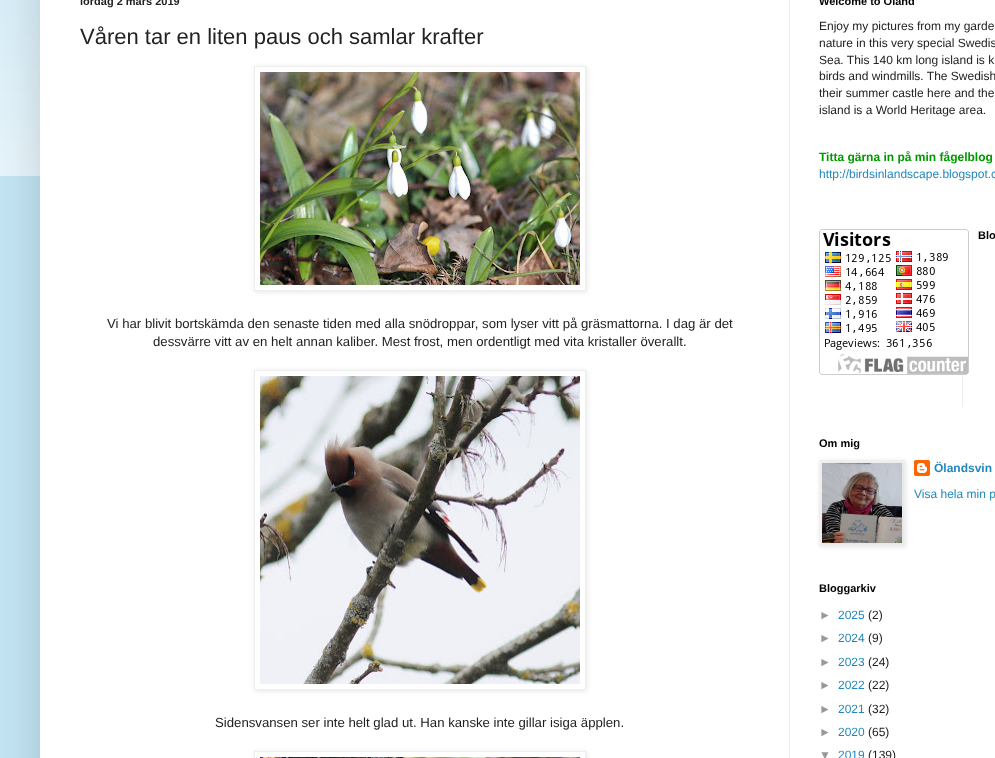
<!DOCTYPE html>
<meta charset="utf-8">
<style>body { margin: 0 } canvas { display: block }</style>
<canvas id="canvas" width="995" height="758"></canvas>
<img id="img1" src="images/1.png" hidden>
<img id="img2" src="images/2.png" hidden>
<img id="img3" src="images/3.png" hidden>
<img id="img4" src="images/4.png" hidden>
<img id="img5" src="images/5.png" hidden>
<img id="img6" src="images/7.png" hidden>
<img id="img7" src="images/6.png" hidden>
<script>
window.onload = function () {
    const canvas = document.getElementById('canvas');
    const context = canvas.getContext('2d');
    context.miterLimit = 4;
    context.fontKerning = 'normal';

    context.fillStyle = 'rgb(194, 227, 242)';
    context.fillRect(0, 0, 995, 758);
    context.drawImage(document.getElementById('img1'), 0, 0, 40, 176);
    context.fillStyle = 'rgba(0, 0, 0, 0.15)';
    context.filter = 'blur(20px)';
    context.beginPath();
    context.rect(40, -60, 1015, 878);
    context.fill();
    context.filter = 'none';
    context.fillStyle = 'rgb(255, 255, 255)';
    context.fillRect(40, 0, 955, 758);
    context.save();
    context.beginPath();
    context.moveTo(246, 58);
    context.lineTo(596, 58);
    context.lineTo(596, 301);
    context.lineTo(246, 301);
    context.closePath();
    context.moveTo(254, 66);
    context.lineTo(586, 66);
    context.lineTo(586, 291);
    context.lineTo(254, 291);
    context.closePath();
    context.clip('evenodd');
    context.fillStyle = 'rgba(0, 0, 0, 0.1)';
    context.filter = 'blur(2.5px)';
    context.beginPath();
    context.rect(255, 67, 332, 225);
    context.fill();
    context.filter = 'none';
    context.restore();
    context.strokeStyle = 'rgb(238, 238, 238)';
    context.strokeRect(254.5, 66.5, 331, 224);
    context.drawImage(document.getElementById('img2'), 260, 72, 320, 213);
    context.save();
    context.beginPath();
    context.moveTo(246, 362);
    context.lineTo(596, 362);
    context.lineTo(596, 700);
    context.lineTo(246, 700);
    context.closePath();
    context.moveTo(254, 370);
    context.lineTo(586, 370);
    context.lineTo(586, 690);
    context.lineTo(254, 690);
    context.closePath();
    context.clip('evenodd');
    context.fillStyle = 'rgba(0, 0, 0, 0.1)';
    context.filter = 'blur(2.5px)';
    context.beginPath();
    context.rect(255, 371, 332, 320);
    context.fill();
    context.filter = 'none';
    context.restore();
    context.strokeRect(254.5, 370.5, 331, 319);
    context.drawImage(document.getElementById('img3'), 260, 376, 320, 308);
    context.save();
    context.beginPath();
    context.moveTo(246, 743);
    context.lineTo(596, 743);
    context.lineTo(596, 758);
    context.lineTo(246, 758);
    context.closePath();
    context.moveTo(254, 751);
    context.lineTo(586, 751);
    context.lineTo(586, 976);
    context.lineTo(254, 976);
    context.closePath();
    context.clip('evenodd');
    context.fillStyle = 'rgba(0, 0, 0, 0.1)';
    context.filter = 'blur(2.5px)';
    context.beginPath();
    context.rect(255, 752, 332, 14);
    context.fill();
    context.filter = 'none';
    context.restore();
    context.strokeRect(254.5, 751.5, 331, 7);
    context.drawImage(document.getElementById('img4'), 260, 757, 320, 1);
    context.drawImage(document.getElementById('img5'), 819, 229, 150, 146);
    context.fillStyle = 'rgb(238, 238, 238)';
    context.fillRect(962, 375, 1, 32);
    context.drawImage(document.getElementById('img6'), 914, 460, 16, 16);
    context.fillStyle = 'rgba(0, 0, 0, 0.1)';
    context.filter = 'blur(2.5px)';
    context.beginPath();
    context.rect(820, 461, 86, 86);
    context.fill();
    context.filter = 'none';
    context.strokeRect(819.5, 460.5, 85, 85);
    context.drawImage(document.getElementById('img7'), 822, 463, 80, 80);
    context.fillStyle = 'rgb(238, 238, 238)';
    context.fillRect(789, 0, 1, 758);
    context.font = 'bold 11px Liberation Sans';
    context.fillStyle = 'rgb(34, 34, 34)';
    context.fillText('lördag 2 mars 2019', 80, 5);
    context.font = '22px Liberation Sans';
    context.fillText('Våren tar en liten paus och samlar krafter', 80, 44);
    context.font = '13.2px Liberation Sans';
    context.fillText('Vi har blivit bortskämda den senaste tiden med alla snödroppar, som lyser vitt på gräsmattorna. I dag är det', 107, 328);
    context.fillText('dessvärre vitt av en helt annan kaliber. Mest frost, men ordentligt med vita kristaller överallt.', 153, 346);
    context.fillText('Sidensvansen ser inte helt glad ut. Han kanske inte gillar isiga äpplen.', 215, 727);
    context.font = 'bold 11px Liberation Sans';
    context.fillStyle = 'rgb(0, 0, 0)';
    context.fillText('Welcome to Öland', 819, 5);
    context.font = '12px Liberation Sans';
    context.fillStyle = 'rgb(34, 34, 34)';
    context.fillText('Enjoy my pictures from my garde', 819, 30);
    context.fillText('nature in this very special Swedis', 819, 47);
    context.fillText('Sea. This 140 km long island is k', 819, 64);
    context.fillText('birds and windmills. The Swedish', 819, 80);
    context.fillText('their summer castle here and the', 819, 97);
    context.fillText('island is a World Heritage area.', 819, 114);
    context.font = 'bold 12px Liberation Sans';
    context.fillStyle = 'rgb(0, 153, 0)';
    context.fillText('Titta gärna in på min fågelblog', 819, 161);
    context.font = '12px Liberation Sans';
    context.fillStyle = 'rgb(34, 136, 187)';
    context.fillText('http://birdsinlandscape.blogspot.c', 819, 178);
    context.font = 'bold 11px Liberation Sans';
    context.fillStyle = 'rgb(0, 0, 0)';
    context.fillText('Blo', 978, 239);
    context.fillText('Om mig', 819, 447);
    context.font = 'bold 12px Liberation Sans';
    context.fillStyle = 'rgb(34, 136, 187)';
    context.fillText('Ölandsvin', 934, 472);
    context.font = '12px Liberation Sans';
    context.fillText('Visa hela min p', 914, 498);
    context.font = 'bold 11px Liberation Sans';
    context.fillStyle = 'rgb(0, 0, 0)';
    context.fillText('Bloggarkiv', 819, 592);
    context.font = '12px Liberation Sans';
    context.fillStyle = 'rgb(153, 153, 153)';
    context.fillText('►', 819, 619);
    context.fillStyle = 'rgb(34, 136, 187)';
    context.fillText('2025', 838, 619);
    context.fillStyle = 'rgb(34, 34, 34)';
    context.fillText('(2)', 868, 619);
    context.fillStyle = 'rgb(153, 153, 153)';
    context.fillText('►', 819, 642);
    context.fillStyle = 'rgb(34, 136, 187)';
    context.fillText('2024', 838, 642);
    context.fillStyle = 'rgb(34, 34, 34)';
    context.fillText('(9)', 868, 642);
    context.fillStyle = 'rgb(153, 153, 153)';
    context.fillText('►', 819, 666);
    context.fillStyle = 'rgb(34, 136, 187)';
    context.fillText('2023', 838, 666);
    context.fillStyle = 'rgb(34, 34, 34)';
    context.fillText('(24)', 868, 666);
    context.fillStyle = 'rgb(153, 153, 153)';
    context.fillText('►', 819, 689);
    context.fillStyle = 'rgb(34, 136, 187)';
    context.fillText('2022', 838, 689);
    context.fillStyle = 'rgb(34, 34, 34)';
    context.fillText('(22)', 868, 689);
    context.fillStyle = 'rgb(153, 153, 153)';
    context.fillText('►', 819, 713);
    context.fillStyle = 'rgb(34, 136, 187)';
    context.fillText('2021', 838, 713);
    context.fillStyle = 'rgb(34, 34, 34)';
    context.fillText('(32)', 868, 713);
    context.fillStyle = 'rgb(153, 153, 153)';
    context.fillText('►', 819, 736);
    context.fillStyle = 'rgb(34, 136, 187)';
    context.fillText('2020', 838, 736);
    context.fillStyle = 'rgb(34, 34, 34)';
    context.fillText('(65)', 868, 736);
    context.fillStyle = 'rgb(153, 153, 153)';
    context.fillText('▼', 819, 759);
    context.fillStyle = 'rgb(34, 136, 187)';
    context.fillText('2019', 838, 759);
    context.fillStyle = 'rgb(34, 34, 34)';
    context.fillText('(139)', 868, 759);
};
</script>
